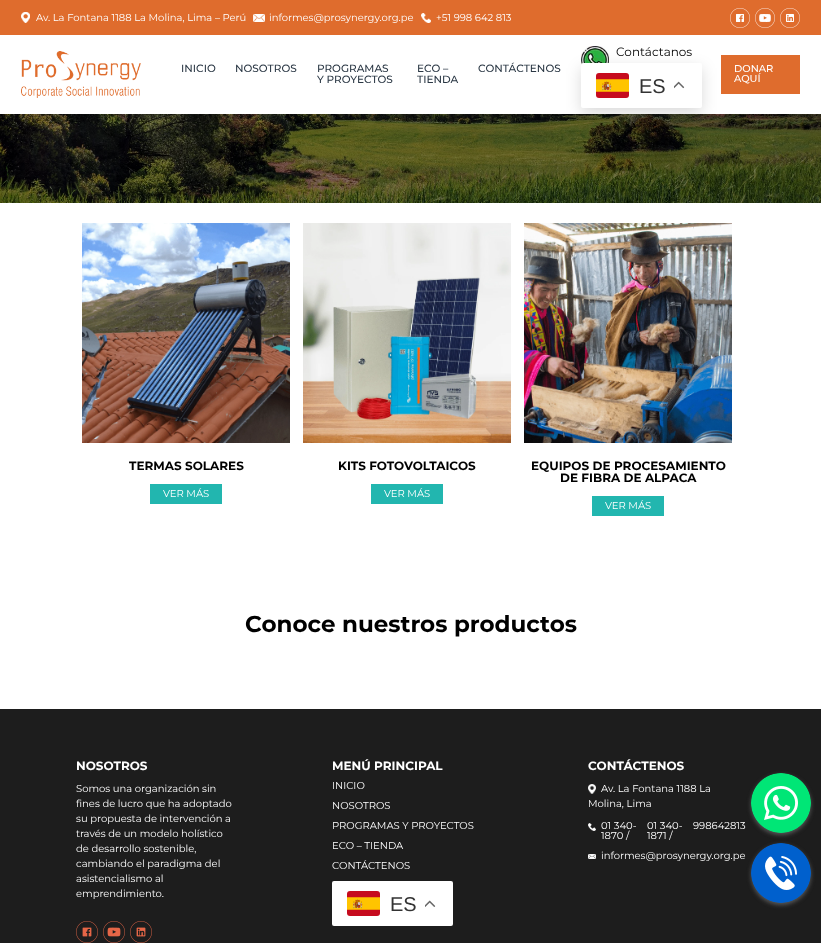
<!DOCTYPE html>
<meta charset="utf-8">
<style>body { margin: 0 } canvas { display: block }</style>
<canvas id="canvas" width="821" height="943"></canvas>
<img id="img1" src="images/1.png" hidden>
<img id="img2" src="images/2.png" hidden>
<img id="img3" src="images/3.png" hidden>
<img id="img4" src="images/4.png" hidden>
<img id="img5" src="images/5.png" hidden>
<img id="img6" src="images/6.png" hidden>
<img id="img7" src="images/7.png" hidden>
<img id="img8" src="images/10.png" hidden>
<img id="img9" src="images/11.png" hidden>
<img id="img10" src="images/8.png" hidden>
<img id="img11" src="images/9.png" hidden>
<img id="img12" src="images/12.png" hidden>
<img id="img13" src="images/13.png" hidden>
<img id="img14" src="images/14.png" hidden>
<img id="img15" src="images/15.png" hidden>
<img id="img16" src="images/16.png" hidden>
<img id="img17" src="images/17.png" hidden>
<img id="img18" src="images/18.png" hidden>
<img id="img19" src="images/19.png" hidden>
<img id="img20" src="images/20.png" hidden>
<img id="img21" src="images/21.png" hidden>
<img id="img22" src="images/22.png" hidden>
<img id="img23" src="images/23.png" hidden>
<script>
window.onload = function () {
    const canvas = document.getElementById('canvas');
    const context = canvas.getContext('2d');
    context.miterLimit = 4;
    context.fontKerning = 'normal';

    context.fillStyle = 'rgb(255, 255, 255)';
    context.fillRect(0, 0, 821, 943);
    context.fillStyle = 'rgb(223, 108, 45)';
    context.fillRect(0, 0, 821, 35);
    context.drawImage(document.getElementById('img1'), 21, 12, 9, 11);
    context.drawImage(document.getElementById('img2'), 253, 14, 12, 8);
    context.drawImage(document.getElementById('img3'), 421, 13, 10, 10);
    context.drawImage(document.getElementById('img4'), 730, 8, 20, 20);
    context.drawImage(document.getElementById('img5'), 755, 8, 20, 20);
    context.drawImage(document.getElementById('img6'), 780, 8, 20, 20);
    context.drawImage(document.getElementById('img7'), 21, 51, 120, 47);
    context.drawImage(document.getElementById('img8'), 581, 46, 28, 19);
    context.fillRect(721, 55, 79, 39);
    context.fillStyle = 'rgb(0, 0, 0)';
    context.fillRect(0, 114, 821, 89);
    context.drawImage(document.getElementById('img9'), 0, 114, 821, 89);
    context.fillStyle = 'rgba(0, 0, 0, 0.15)';
    context.filter = 'blur(7.5px)';
    context.beginPath();
    context.roundRect(581, 68, 121, 45, 2);
    context.fill();
    context.filter = 'none';
    context.fillStyle = 'rgb(255, 255, 255)';
    context.beginPath();
    context.roundRect(581, 63, 121, 45, 2);
    context.fill();
    context.drawImage(document.getElementById('img10'), 596, 73, 33, 25);
    context.drawImage(document.getElementById('img11'), 674, 81, 11, 8);
    context.drawImage(document.getElementById('img12'), 82, 223, 208, 220);
    context.fillStyle = 'rgb(34, 182, 175)';
    context.fillRect(150, 484, 72, 20);
    context.drawImage(document.getElementById('img13'), 303, 223, 208, 220);
    context.fillRect(371, 484, 72, 20);
    context.drawImage(document.getElementById('img14'), 524, 223, 208, 220);
    context.fillRect(592, 496, 72, 20);
    context.fillStyle = 'rgb(29, 29, 29)';
    context.fillRect(0, 709, 821, 234);
    context.drawImage(document.getElementById('img15'), 76, 921, 22, 22);
    context.drawImage(document.getElementById('img16'), 103, 921, 22, 22);
    context.drawImage(document.getElementById('img17'), 130, 921, 22, 22);
    context.fillStyle = 'rgb(255, 255, 255)';
    context.beginPath();
    context.roundRect(332, 881, 121, 45, 2);
    context.fill();
    context.drawImage(document.getElementById('img10'), 347, 891, 33, 25);
    context.drawImage(document.getElementById('img18'), 425, 900, 11, 7);
    context.drawImage(document.getElementById('img19'), 588, 784, 8, 10);
    context.drawImage(document.getElementById('img20'), 588, 823, 8, 8);
    context.drawImage(document.getElementById('img21'), 588, 854, 8, 5);
    context.fillStyle = 'rgb(88, 88, 88)';
    context.filter = 'blur(2px)';
    context.beginPath();
    context.roundRect(751, 775, 60, 60, 30);
    context.fill();
    context.filter = 'none';
    context.drawImage(document.getElementById('img22'), 751, 773, 60, 60);
    context.filter = 'blur(2px)';
    context.beginPath();
    context.roundRect(751, 845, 60, 60, 30);
    context.fill();
    context.filter = 'none';
    context.drawImage(document.getElementById('img23'), 751, 843, 60, 60);
    context.font = '10px Montserrat';
    context.fillStyle = 'rgb(255, 255, 255)';
    context.fillText('Av. La Fontana 1188 La Molina, Lima – Perú', 36, 21);
    context.fillText('informes@prosynergy.org.pe', 269, 21);
    context.fillText('+51 998 642 813', 436, 21);
    context.font = '500 10.5px Montserrat';
    context.fillStyle = 'rgb(42, 55, 68)';
    context.fillText('INICIO', 181, 72);
    context.fillText('NOSOTROS', 235, 72);
    context.fillText('PROGRAMAS', 317, 72);
    context.fillText('Y PROYECTOS', 317, 83);
    context.fillText('ECO –', 417, 72);
    context.fillText('TIENDA', 417, 83);
    context.fillText('CONTÁCTENOS', 478, 72);
    context.font = '20px Liberation Sans';
    context.fillStyle = 'rgb(51, 51, 51)';
    context.fillText('ES', 639, 93);
    context.font = '12px Montserrat';
    context.fillStyle = 'rgb(0, 0, 0)';
    context.fillText('Contáctanos', 616, 56);
    context.font = '500 10px Montserrat';
    context.fillStyle = 'rgb(255, 255, 255)';
    context.fillText('DONAR', 734, 72);
    context.fillText('AQUÍ', 734, 82);
    context.font = 'bold 12px Montserrat';
    context.fillStyle = 'rgb(0, 0, 0)';
    context.fillText('TERMAS SOLARES', 129, 470);
    context.font = '10px Montserrat';
    context.fillStyle = 'rgb(255, 255, 255)';
    context.fillText('VER MÁS', 163, 497);
    context.font = 'bold 12px Montserrat';
    context.fillStyle = 'rgb(0, 0, 0)';
    context.fillText('KITS FOTOVOLTAICOS', 338, 470);
    context.font = '10px Montserrat';
    context.fillStyle = 'rgb(255, 255, 255)';
    context.fillText('VER MÁS', 384, 497);
    context.font = 'bold 12px Montserrat';
    context.fillStyle = 'rgb(0, 0, 0)';
    context.fillText('EQUIPOS DE PROCESAMIENTO', 531, 470);
    context.fillText('DE FIBRA DE ALPACA', 560, 482);
    context.font = '10px Montserrat';
    context.fillStyle = 'rgb(255, 255, 255)';
    context.fillText('VER MÁS', 605, 509);
    context.font = 'bold 23px Montserrat';
    context.fillStyle = 'rgb(0, 0, 0)';
    context.fillText('Conoce nuestros productos', 245, 632);
    context.font = 'bold 12px Montserrat';
    context.fillStyle = 'rgb(255, 255, 255)';
    context.fillText('NOSOTROS', 76, 770);
    context.font = '10px Montserrat';
    context.fillText('Somos una organización sin', 76, 792);
    context.fillText('fines de lucro que ha adoptado', 76, 807);
    context.fillText('su propuesta de intervención a', 76, 822);
    context.fillText('través de un modelo holístico', 76, 837);
    context.fillText('de desarrollo sostenible,', 76, 852);
    context.fillText('cambiando el paradigma del', 76, 867);
    context.fillText('asistencialismo al', 76, 882);
    context.fillText('emprendimiento.', 76, 897);
    context.font = 'bold 12px Montserrat';
    context.fillText('MENÚ PRINCIPAL', 332, 770);
    context.font = '10px Montserrat';
    context.fillText('INICIO', 332, 789);
    context.fillText('NOSOTROS', 332, 809);
    context.fillText('PROGRAMAS Y PROYECTOS', 332, 829);
    context.fillText('ECO – TIENDA', 332, 849);
    context.fillText('CONTÁCTENOS', 332, 869);
    context.font = '20px Liberation Sans';
    context.fillStyle = 'rgb(51, 51, 51)';
    context.fillText('ES', 390, 911);
    context.font = 'bold 12px Montserrat';
    context.fillStyle = 'rgb(255, 255, 255)';
    context.fillText('CONTÁCTENOS', 588, 770);
    context.font = '10px Montserrat';
    context.fillText('Av. La Fontana 1188 La', 601, 792);
    context.fillText('Molina, Lima', 588, 807);
    context.fillText('01 340-', 601, 829);
    context.fillText('1870 /', 601, 839);
    context.fillText('01 340-', 647, 829);
    context.fillText('1871 /', 647, 839);
    context.fillText('998642813', 693, 829);
    context.fillText('informes@prosynergy.org.pe', 601, 859);
};
</script>
